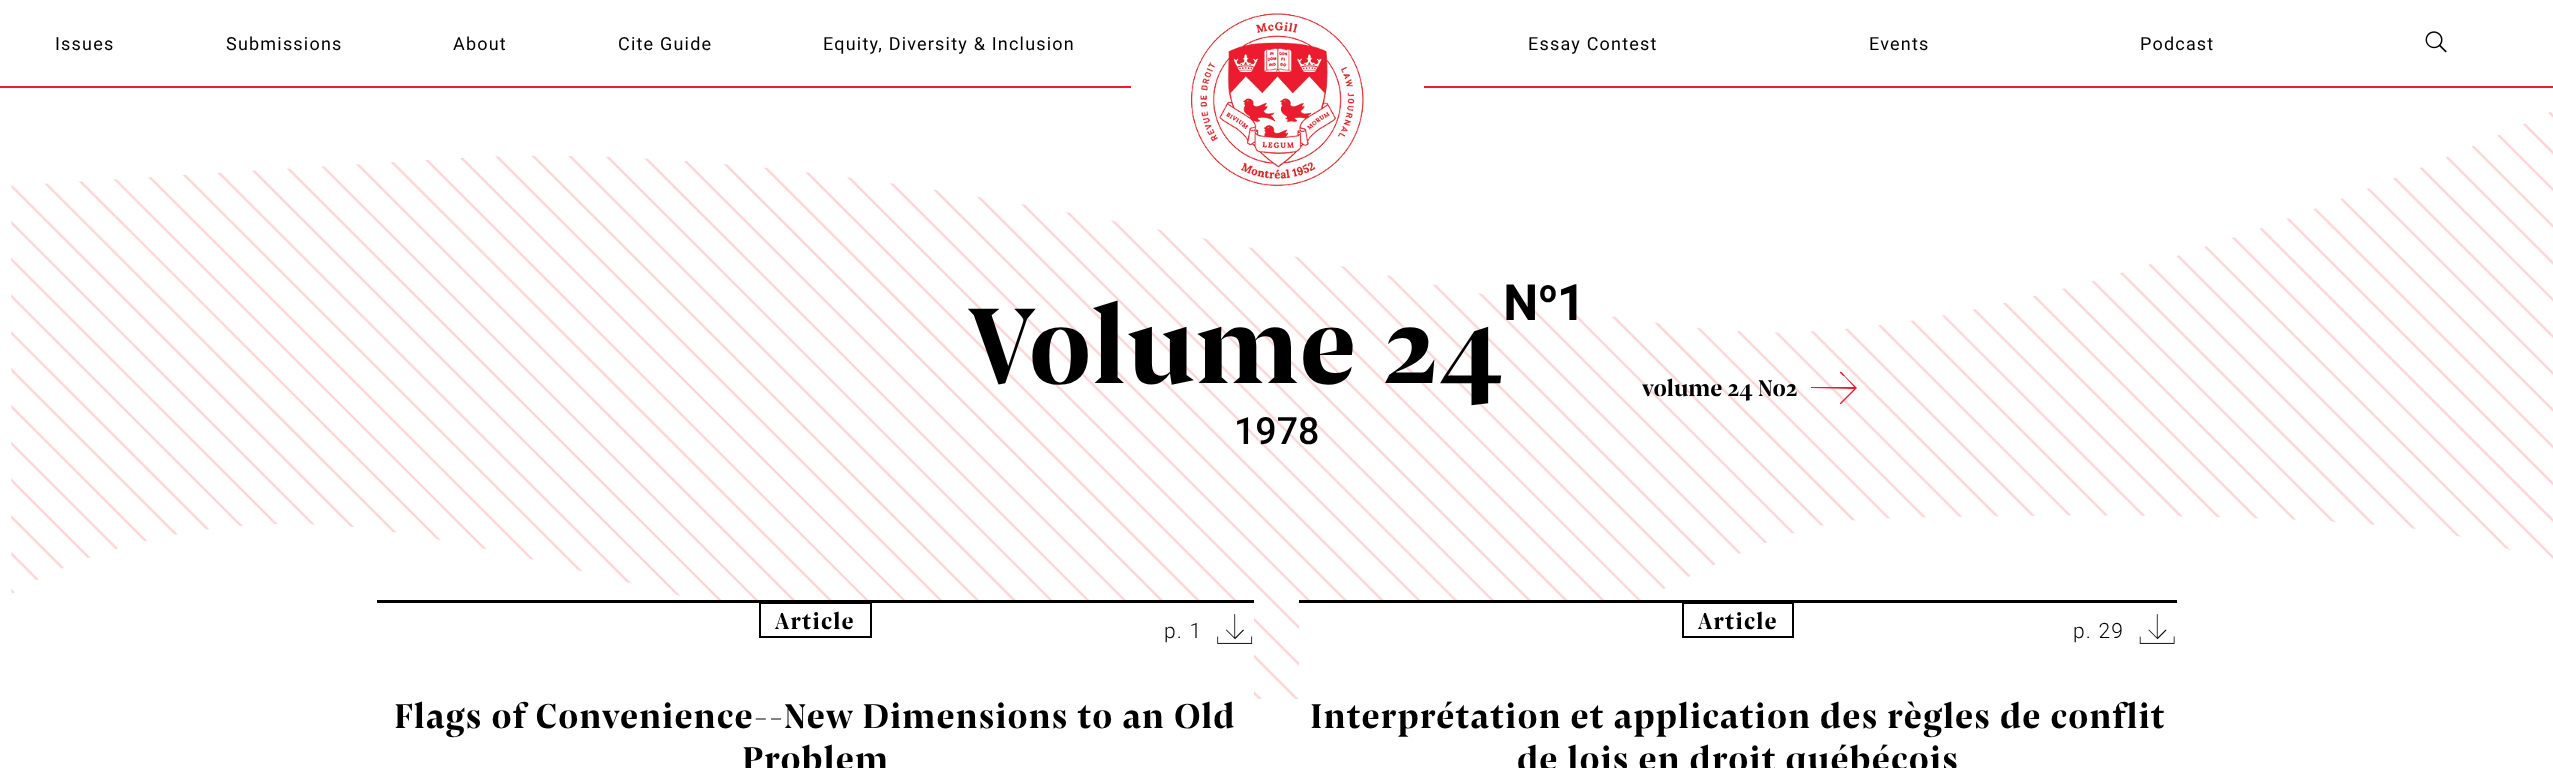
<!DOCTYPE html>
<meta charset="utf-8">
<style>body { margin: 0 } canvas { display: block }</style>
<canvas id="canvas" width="2553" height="768"></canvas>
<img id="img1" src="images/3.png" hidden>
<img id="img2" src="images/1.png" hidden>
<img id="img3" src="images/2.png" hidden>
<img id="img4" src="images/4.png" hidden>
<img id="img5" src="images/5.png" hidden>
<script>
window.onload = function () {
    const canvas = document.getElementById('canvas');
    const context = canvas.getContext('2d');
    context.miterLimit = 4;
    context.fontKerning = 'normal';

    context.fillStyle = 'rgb(255, 255, 255)';
    context.fillRect(0, 0, 2553, 768);
    context.fillStyle = 'rgb(237, 27, 47)';
    context.fillRect(0, 86, 1131, 2);
    context.drawImage(document.getElementById('img1'), 11, 112, 2542, 587);
    context.drawImage(document.getElementById('img2'), 1191, 13, 173, 173);
    context.drawImage(document.getElementById('img3'), 2425, 31, 22, 22);
    context.fillRect(1424, 86, 1129, 2);
    context.beginPath();
    context.moveTo(1840, 372);
    context.bezierCurveTo(1839, 373, 1845, 377, 1845, 377);
    context.lineTo(1854, 387);
    context.lineTo(1811, 387);
    context.lineTo(1811, 388);
    context.lineTo(1854, 389);
    context.lineTo(1840, 403);
    context.bezierCurveTo(1840, 404, 1840, 404, 1841, 404);
    context.lineTo(1857, 388);
    context.lineTo(1846, 377);
    context.bezierCurveTo(1846, 377, 1841, 370, 1840, 372);
    context.closePath();
    context.fill();
    context.fillStyle = 'rgb(255, 255, 255)';
    context.fillRect(721, 603, 533, 96);
    context.fillStyle = 'rgb(0, 0, 0)';
    context.fillRect(377, 600, 877, 3);
    context.strokeStyle = 'rgb(0, 0, 0)';
    context.lineWidth = 2;
    context.strokeRect(760, 603, 111, 34);
    context.drawImage(document.getElementById('img4'), 1217, 614, 36, 30);
    context.fillStyle = 'rgb(255, 255, 255)';
    context.fillRect(1299, 603, 318, 95);
    context.fillStyle = 'rgb(0, 0, 0)';
    context.fillRect(1299, 600, 878, 3);
    context.strokeRect(1683, 603, 110, 34);
    context.drawImage(document.getElementById('img5'), 2139, 614, 36, 30);
    context.letterSpacing = '1.2px';
    context.font = '18px Roboto';
    context.fillText('Issues', 55, 50);
    context.fillText('Submissions', 226, 50);
    context.fillText('About', 453, 50);
    context.fillText('Cite Guide', 618, 50);
    context.fillText('Equity, Diversity & Inclusion', 823, 50);
    context.fillText('Essay Contest', 1528, 50);
    context.fillText('Events', 1869, 50);
    context.fillText('Podcast', 2140, 50);
    context.font = 'bold 112.5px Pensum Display';
    context.fillText('Volume 24', 968, 383);
    context.font = 'bold 48px Roboto';
    context.fillText('N', 1503, 320);
    context.font = 'bold 30px Roboto';
    context.fillText('o', 1539, 302);
    context.font = 'bold 48px Roboto';
    context.fillText('1', 1557, 320);
    context.letterSpacing = '0px';
    context.font = 'bold 24px Pensum Display';
    context.fillText('volume 24 No2', 1642, 396);
    context.font = '500 37.5px Roboto';
    context.fillText('1978', 1234, 444);
    context.letterSpacing = '1.2px';
    context.font = 'bold 24px Pensum Display';
    context.fillText('Article', 775, 629);
    context.font = '300 21px Roboto';
    context.fillText('p. 1', 1164, 638);
    context.font = 'bold 36px Pensum Display';
    context.fillText('Flags of Convenience--New Dimensions to an Old', 394, 728);
    context.fillText('Problem', 742, 771);
    context.font = 'bold 24px Pensum Display';
    context.fillText('Article', 1698, 629);
    context.font = '300 21px Roboto';
    context.fillText('p. 29', 2073, 638);
    context.font = 'bold 36px Pensum Display';
    context.fillText('Interprétation et application des règles de conflit', 1310, 728);
    context.fillText('de lois en droit québécois', 1517, 771);
};
</script>
